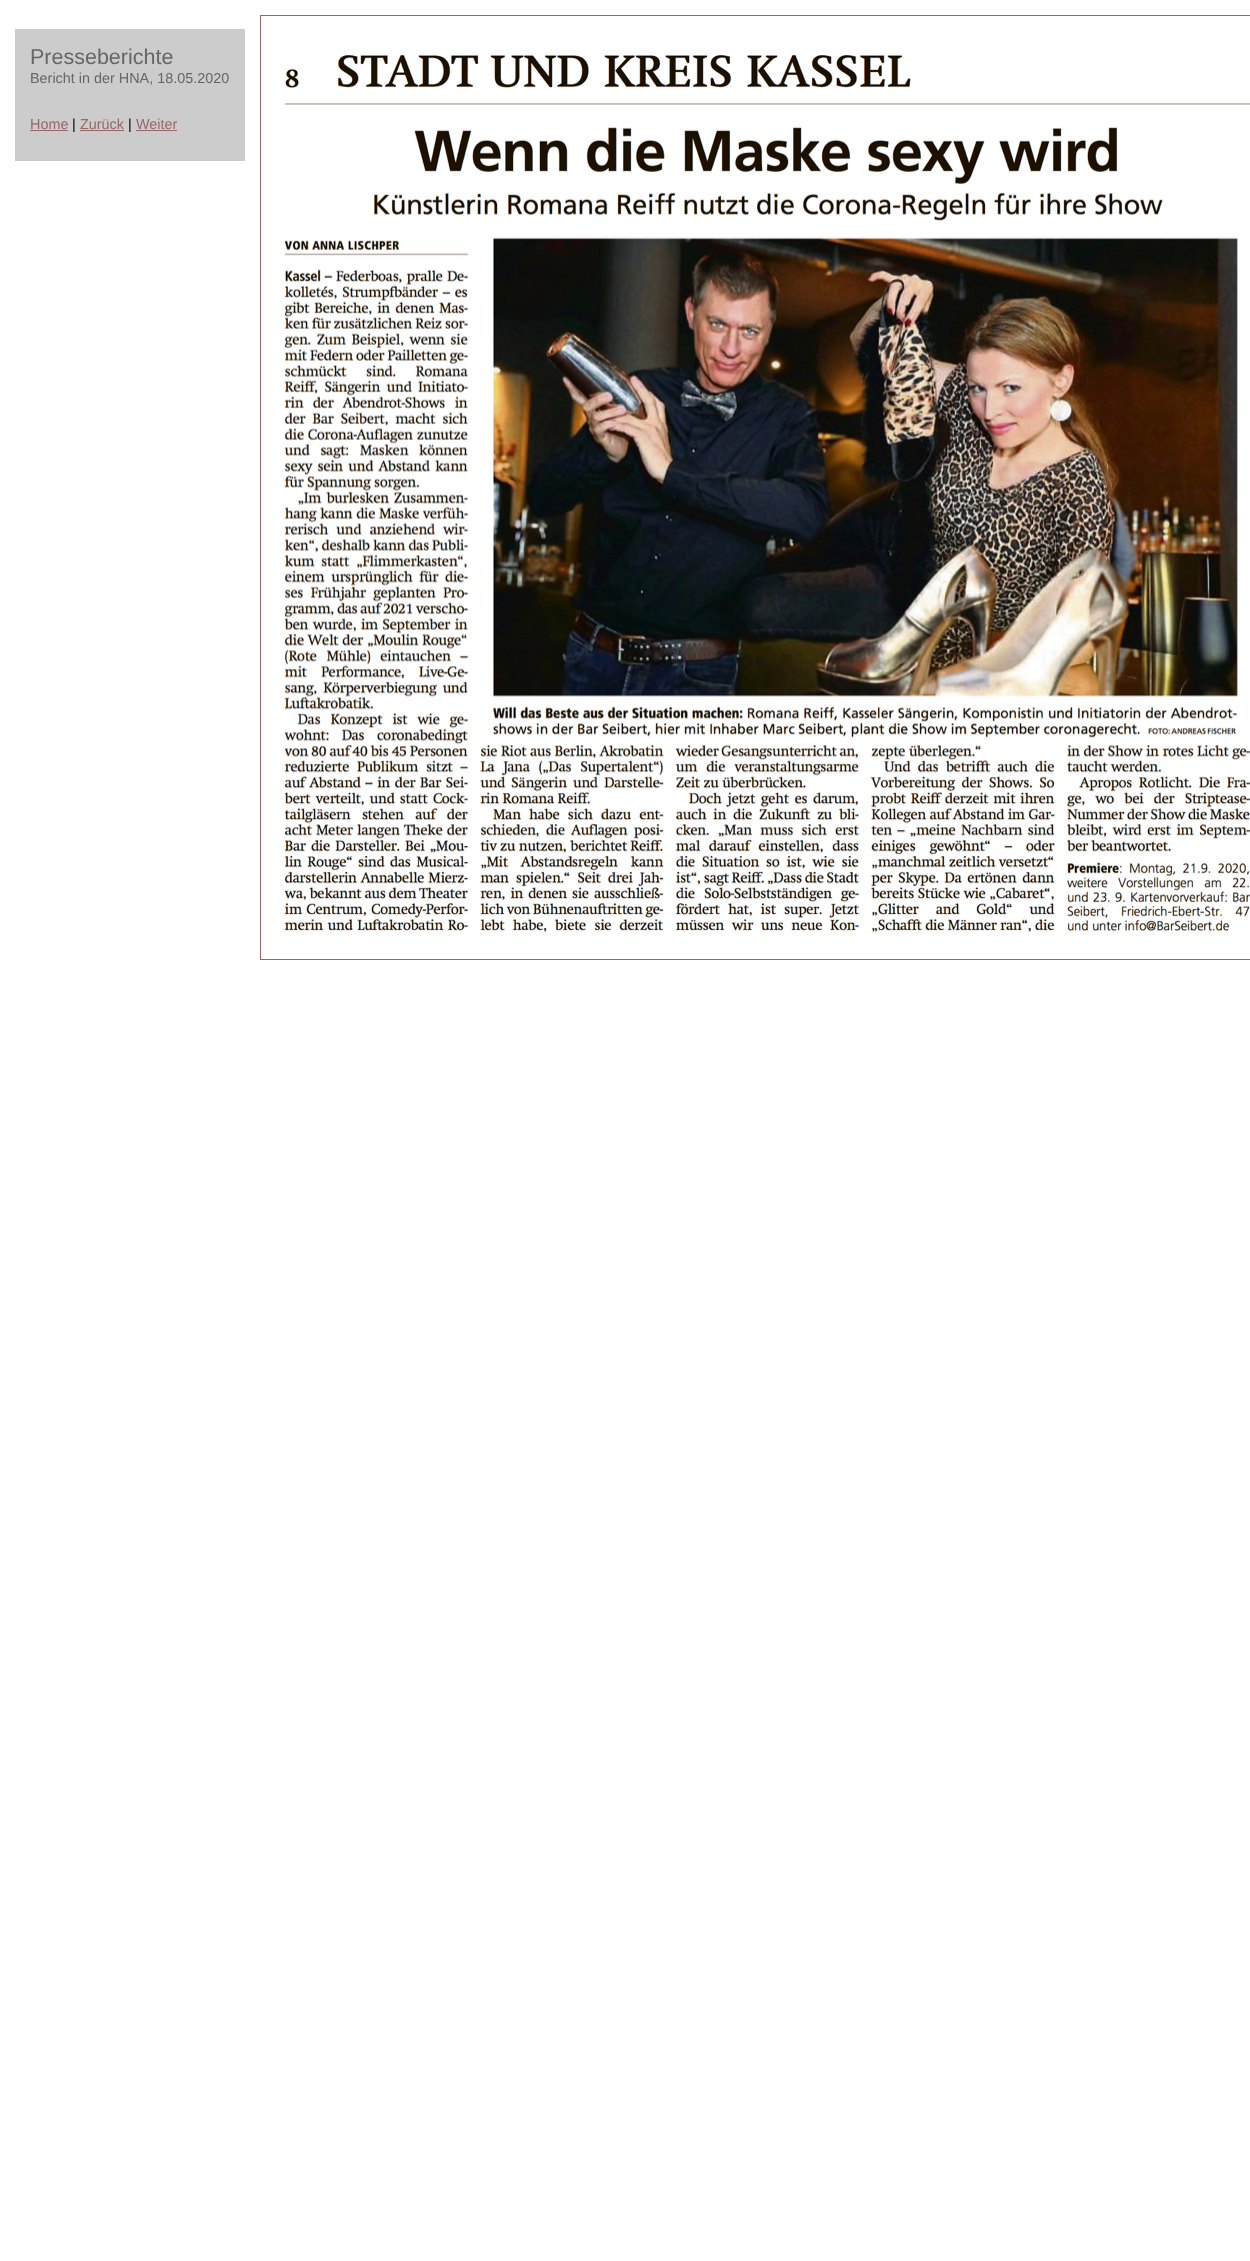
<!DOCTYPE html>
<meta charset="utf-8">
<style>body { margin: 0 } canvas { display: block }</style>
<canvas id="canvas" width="1250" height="2261"></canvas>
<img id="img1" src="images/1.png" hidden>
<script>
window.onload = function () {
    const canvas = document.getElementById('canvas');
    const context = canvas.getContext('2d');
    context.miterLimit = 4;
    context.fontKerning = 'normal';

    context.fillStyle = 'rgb(255, 255, 255)';
    context.fillRect(0, 0, 1250, 2261);
    context.fillStyle = 'rgb(204, 204, 204)';
    context.fillRect(15, 29, 230, 132);
    context.fillStyle = 'rgb(153, 102, 102)';
    context.fillRect(30, 130, 38, 1);
    context.fillRect(80, 130, 44, 1);
    context.fillRect(136, 130, 41, 1);
    context.drawImage(document.getElementById('img1'), 261, 16, 989, 943);
    context.strokeStyle = 'rgb(153, 102, 102)';
    context.strokeRect(260.5, 15.5, 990, 944);
    context.font = '21.5px Liberation Sans';
    context.fillStyle = 'rgb(102, 102, 102)';
    context.fillText('Presseberichte', 30, 64);
    context.font = '14.4px Liberation Sans';
    context.fillText('Bericht in der HNA, 18.05.2020', 30, 83);
    context.fillStyle = 'rgb(153, 102, 102)';
    context.fillText('Home', 30, 129);
    context.fillStyle = 'rgb(0, 0, 0)';
    context.fillText('|', 72, 129);
    context.fillStyle = 'rgb(153, 102, 102)';
    context.fillText('Zurück', 80, 129);
    context.fillStyle = 'rgb(0, 0, 0)';
    context.fillText('|', 128, 129);
    context.fillStyle = 'rgb(153, 102, 102)';
    context.fillText('Weiter', 136, 129);
};
</script>
